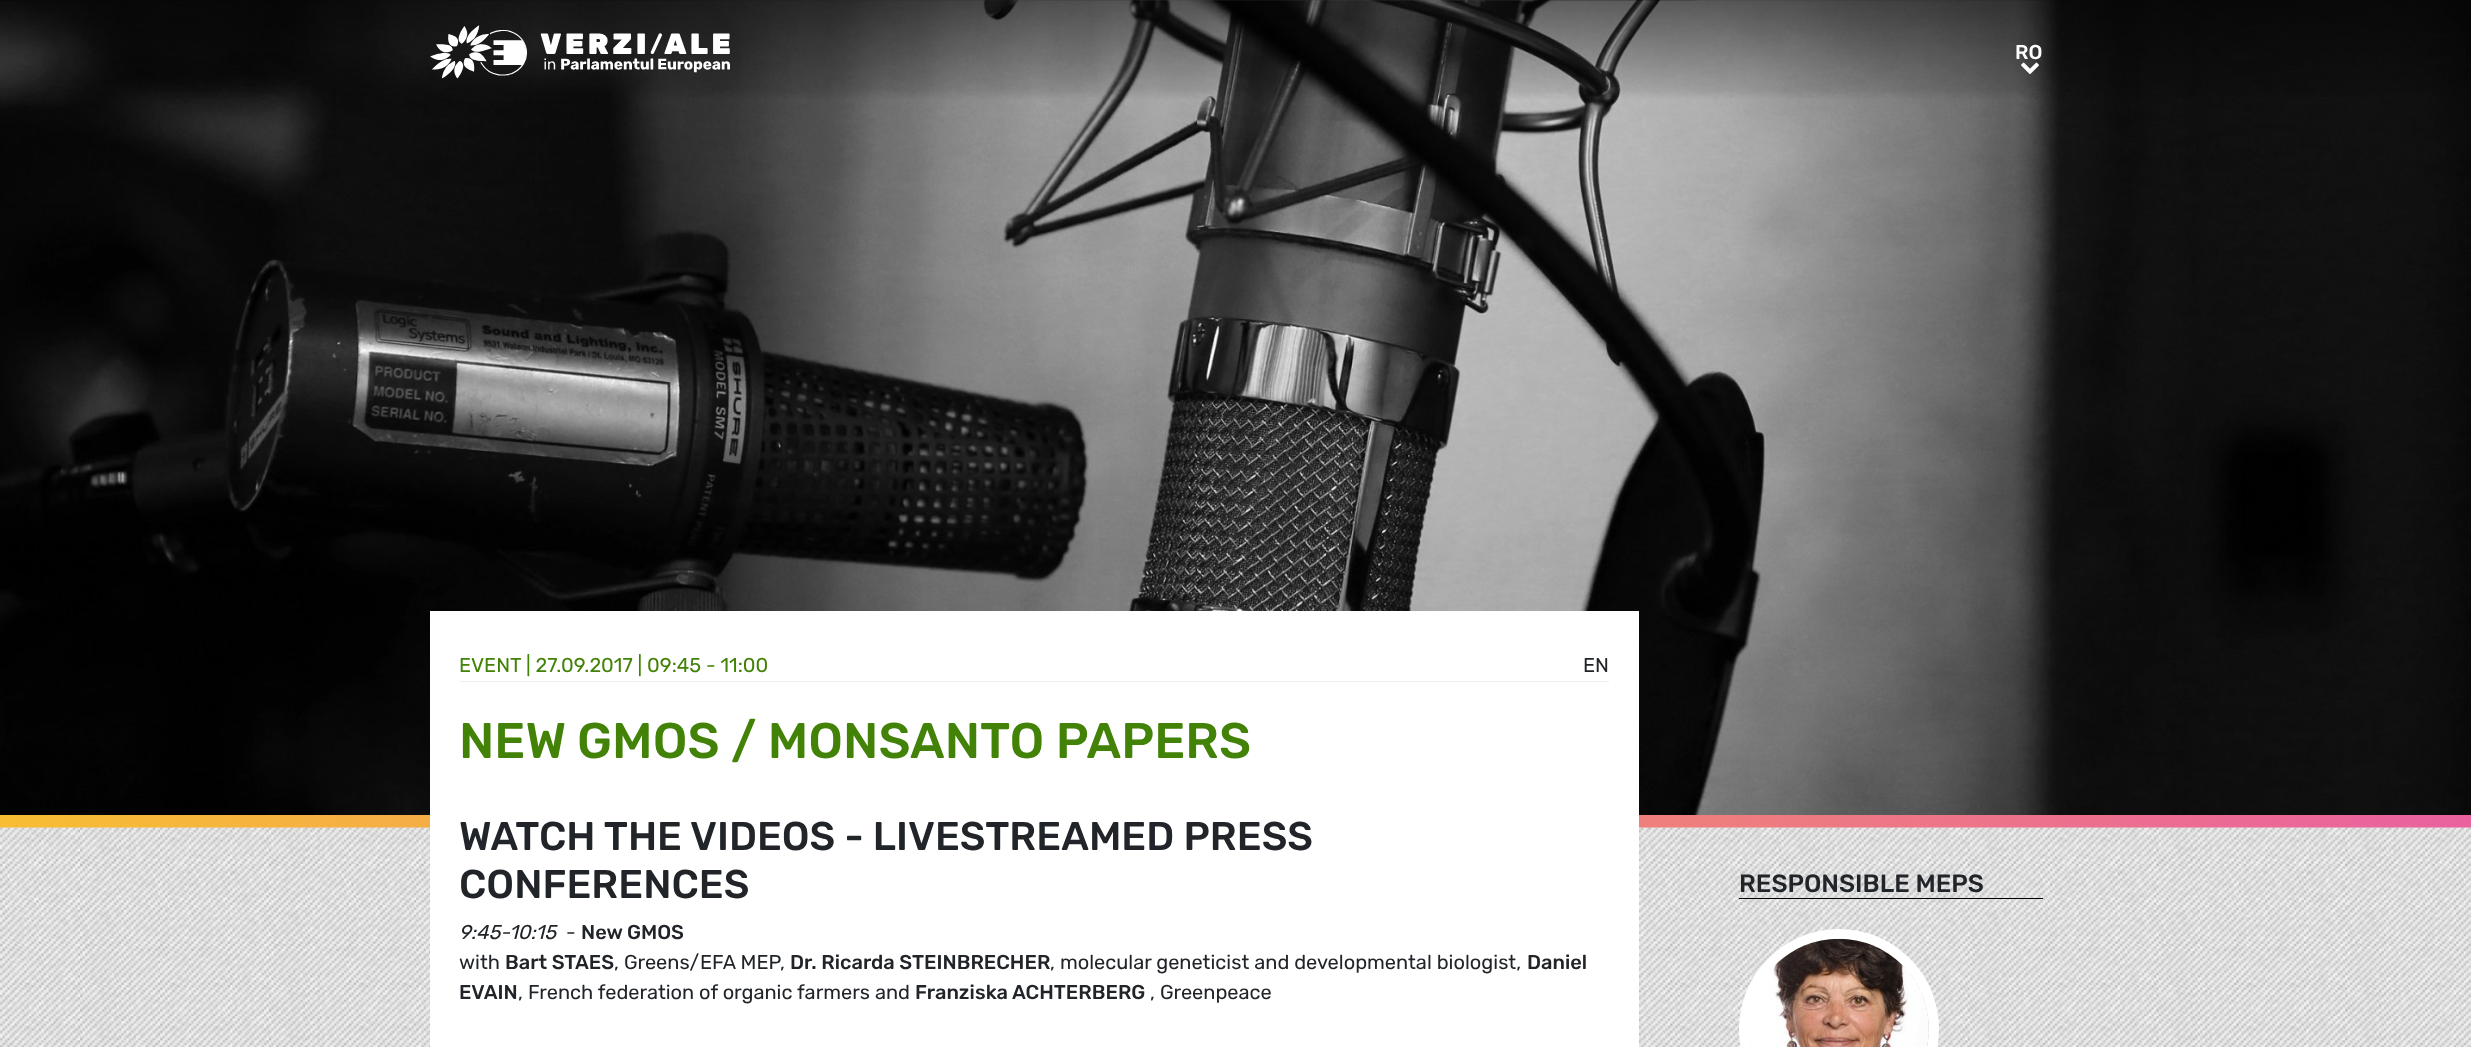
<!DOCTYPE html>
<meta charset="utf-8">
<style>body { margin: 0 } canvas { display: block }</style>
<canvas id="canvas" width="2471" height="1047"></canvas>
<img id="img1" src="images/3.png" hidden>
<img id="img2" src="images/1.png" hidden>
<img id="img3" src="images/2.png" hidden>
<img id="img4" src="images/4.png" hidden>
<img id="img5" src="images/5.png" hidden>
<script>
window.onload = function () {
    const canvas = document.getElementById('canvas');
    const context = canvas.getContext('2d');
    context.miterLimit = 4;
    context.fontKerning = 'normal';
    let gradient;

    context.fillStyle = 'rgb(255, 255, 255)';
    context.fillRect(0, 0, 2471, 1047);
    context.drawImage(document.getElementById('img1'), 0, 0, 2471, 815);
    context.drawImage(document.getElementById('img2'), 430, 25, 300, 54);
    context.drawImage(document.getElementById('img3'), 2021, 62, 18, 12);
    gradient = context.createLinearGradient(0, 821, 2471, 821);
    gradient.addColorStop(0, 'rgb(247, 189, 51)');
    gradient.addColorStop(1, 'rgb(234, 97, 159)');
    context.fillStyle = gradient;
    context.fillRect(0, 815, 2471, 13);
    context.drawImage(document.getElementById('img4'), 0, 827, 2471, 220);
    context.fillStyle = 'rgb(255, 255, 255)';
    context.fillRect(430, 611, 1209, 436);
    context.fillStyle = 'rgb(239, 239, 239)';
    context.fillRect(460, 681, 1149, 1);
    context.fillStyle = 'rgb(0, 0, 0)';
    context.fillRect(1739, 898, 304, 1);
    context.beginPath();
    context.arc(1839, 1029, 95, 0, 2 * Math.PI);
    context.strokeStyle = 'rgb(255, 255, 255)';
    context.lineWidth = 10;
    context.stroke();
    context.drawImage(document.getElementById('img5'), 1749, 938, 180, 109);
    context.font = '500 20px Rubik';
    context.fillStyle = 'rgb(255, 255, 255)';
    context.fillText('RO', 2015, 59);
    context.font = '20px Rubik';
    context.fillStyle = 'rgb(66, 130, 7)';
    context.fillText('EVENT | 27.09.2017 | 09:45 - 11:00', 459, 672);
    context.fillStyle = 'rgb(33, 37, 41)';
    context.fillText('EN', 1583, 672);
    context.font = '500 50px Rubik';
    context.fillStyle = 'rgb(66, 130, 7)';
    context.fillText('NEW GMOS / MONSANTO PAPERS', 459, 758);
    context.font = '500 40px Rubik';
    context.fillStyle = 'rgb(33, 37, 41)';
    context.fillText('WATCH THE VIDEOS - LIVESTREAMED PRESS', 459, 850);
    context.fillText('CONFERENCES', 459, 898);
    context.font = 'italic 20px Rubik';
    context.fillText('9:45-10:15', 459, 939);
    context.font = '20px Rubik';
    context.fillText('-', 566, 939);
    context.font = '500 20px Rubik';
    context.fillText('New GMOS', 581, 939);
    context.font = '20px Rubik';
    context.fillText('with', 459, 969);
    context.font = '500 20px Rubik';
    context.fillText('Bart STAES', 505, 969);
    context.font = '20px Rubik';
    context.fillText(', Greens/EFA MEP,', 614, 969);
    context.font = '500 20px Rubik';
    context.fillText('Dr. Ricarda STEINBRECHER', 790, 969);
    context.font = '20px Rubik';
    context.fillText(', molecular geneticist and developmental biologist,', 1050, 969);
    context.font = '500 20px Rubik';
    context.fillText('Daniel', 1527, 969);
    context.fillText('EVAIN', 459, 999);
    context.font = '20px Rubik';
    context.fillText(', French federation of organic farmers and', 518, 999);
    context.font = '500 20px Rubik';
    context.fillText('Franziska ACHTERBERG', 915, 999);
    context.font = '20px Rubik';
    context.fillText(', Greenpeace', 1150, 999);
    context.font = '500 25px Rubik';
    context.fillText('RESPONSIBLE MEPS', 1739, 892);
};
</script>
